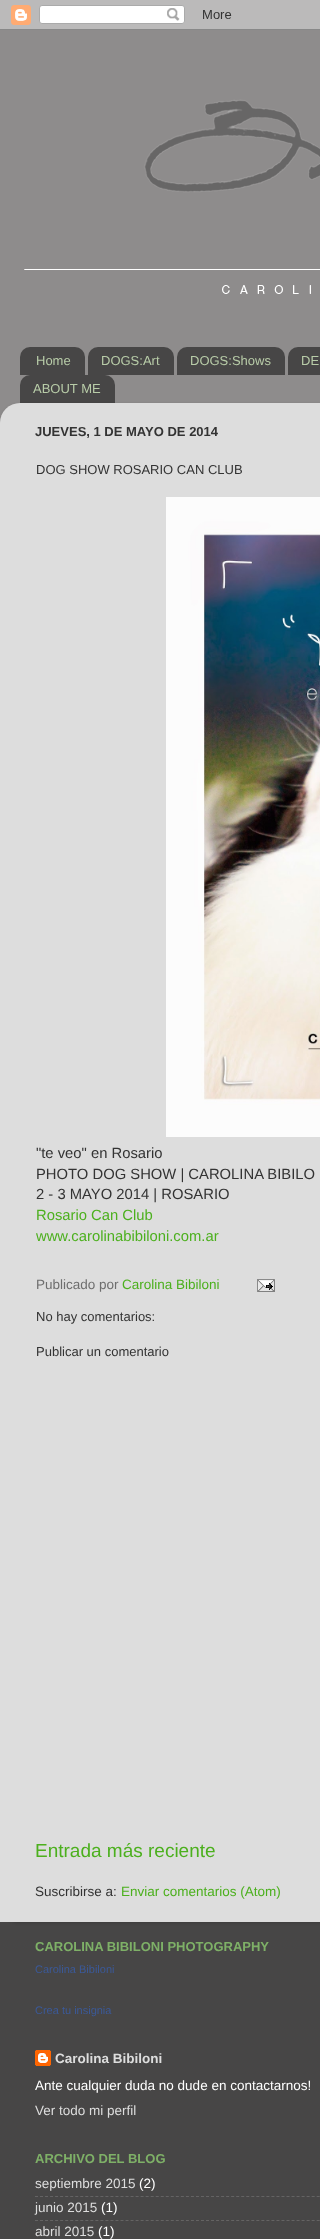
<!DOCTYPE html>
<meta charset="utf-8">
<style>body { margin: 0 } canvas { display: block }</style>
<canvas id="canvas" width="320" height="2239"></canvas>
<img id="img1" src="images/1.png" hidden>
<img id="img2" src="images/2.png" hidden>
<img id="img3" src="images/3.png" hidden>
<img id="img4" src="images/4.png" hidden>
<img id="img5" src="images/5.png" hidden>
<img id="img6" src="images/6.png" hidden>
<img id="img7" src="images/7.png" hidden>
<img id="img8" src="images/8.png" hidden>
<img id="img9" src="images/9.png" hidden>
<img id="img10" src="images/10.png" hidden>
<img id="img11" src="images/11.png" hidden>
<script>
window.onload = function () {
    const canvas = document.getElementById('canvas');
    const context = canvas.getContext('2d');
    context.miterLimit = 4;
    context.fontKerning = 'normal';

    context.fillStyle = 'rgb(142, 140, 140)';
    context.fillRect(0, 0, 320, 2239);
    context.drawImage(document.getElementById('img1'), 0, 0, 320, 30);
    context.drawImage(document.getElementById('img2'), 24, 99, 296, 195);
    context.drawImage(document.getElementById('img3'), 20, 347, 65, 28);
    context.drawImage(document.getElementById('img4'), 88, 347, 86, 28);
    context.drawImage(document.getElementById('img5'), 177, 347, 108, 28);
    context.drawImage(document.getElementById('img6'), 288, 347, 32, 28);
    context.drawImage(document.getElementById('img7'), 20, 375, 95, 28);
    context.save();
    context.beginPath();
    context.moveTo(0, 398);
    context.lineTo(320, 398);
    context.lineTo(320, 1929);
    context.lineTo(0, 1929);
    context.closePath();
    context.moveTo(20, 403);
    context.lineTo(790, 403);
    context.bezierCurveTo(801, 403, 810, 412, 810, 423);
    context.lineTo(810, 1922);
    context.lineTo(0, 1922);
    context.lineTo(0, 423);
    context.bezierCurveTo(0, 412, 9, 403, 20, 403);
    context.closePath();
    context.clip('evenodd');
    context.fillStyle = 'rgba(0, 0, 0, 0.15)';
    context.filter = 'blur(1.5px)';
    context.beginPath();
    context.roundRect(0, 404, 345, 1519, 20);
    context.fill();
    context.filter = 'none';
    context.restore();
    context.drawImage(document.getElementById('img8'), 0, 403, 320, 1519);
    context.drawImage(document.getElementById('img9'), 166, 497, 154, 640);
    context.drawImage(document.getElementById('img10'), 257, 1279, 18, 13);
    context.fillStyle = 'rgba(0, 0, 0, 0.5)';
    context.fillRect(0, 1922, 320, 317);
    context.drawImage(document.getElementById('img11'), 35, 2050, 16, 16);
    context.beginPath();
    context.moveTo(35, 2196.5);
    context.lineTo(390, 2196.5);
    context.strokeStyle = 'rgb(100, 99, 99)';
    context.setLineDash([3, 2.03]);
    context.stroke();
    context.beginPath();
    context.moveTo(35, 2220.5);
    context.lineTo(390, 2220.5);
    context.stroke();
    context.font = '13px Liberation Sans';
    context.fillStyle = 'rgb(184, 204, 168)';
    context.fillText('Home', 36, 365);
    context.fillText('DOGS:Art', 101, 365);
    context.fillText('DOGS:Shows', 190, 365);
    context.fillText('DE', 301, 365);
    context.fillText('ABOUT ME', 33, 393);
    context.font = 'bold 13px Liberation Sans';
    context.fillStyle = 'rgb(51, 51, 51)';
    context.fillText('JUEVES, 1 DE MAYO DE 2014', 35, 436);
    context.font = '13px Liberation Sans';
    context.fillText('DOG SHOW ROSARIO CAN CLUB', 36, 474);
    context.font = '14.8px Liberation Sans';
    context.fillText('"te veo" en Rosario', 36, 1158);
    context.fillText('PHOTO DOG SHOW | CAROLINA BIBILO', 36, 1179);
    context.fillText('2 - 3 MAYO 2014 | ROSARIO', 36, 1199);
    context.fillStyle = 'rgb(76, 176, 30)';
    context.fillText('Rosario Can Club', 36, 1220);
    context.fillText('www.carolinabibiloni.com.ar', 36, 1241);
    context.font = '13.5px Liberation Sans';
    context.fillStyle = 'rgb(110, 110, 110)';
    context.fillText('Publicado por', 36, 1289);
    context.fillStyle = 'rgb(76, 176, 30)';
    context.fillText('Carolina Bibiloni', 122, 1289);
    context.font = '13px Liberation Sans';
    context.fillStyle = 'rgb(51, 51, 51)';
    context.fillText('No hay comentarios:', 36, 1321);
    context.fillText('Publicar un comentario', 36, 1356);
    context.font = '19px Liberation Sans';
    context.fillStyle = 'rgb(76, 176, 30)';
    context.fillText('Entrada más reciente', 35, 1857);
    context.font = '13.5px Liberation Sans';
    context.fillStyle = 'rgb(51, 51, 51)';
    context.fillText('Suscribirse a:', 35, 1896);
    context.fillStyle = 'rgb(76, 176, 30)';
    context.fillText('Enviar comentarios (Atom)', 121, 1896);
    context.font = 'bold 13px Liberation Sans';
    context.fillStyle = 'rgb(126, 176, 103)';
    context.fillText('CAROLINA BIBILONI PHOTOGRAPHY', 35, 1951);
    context.font = '11px Liberation Sans';
    context.fillStyle = 'rgb(59, 89, 152)';
    context.fillText('Carolina Bibiloni', 35, 1973);
    context.fillText('Crea tu insignia', 35, 2014);
    context.font = 'bold 13.5px Liberation Sans';
    context.fillStyle = 'rgb(221, 221, 221)';
    context.fillText('Carolina Bibiloni', 55, 2063);
    context.font = '13.5px Liberation Sans';
    context.fillStyle = 'rgb(255, 255, 255)';
    context.fillText('Ante cualquier duda no dude en contactarnos!', 35, 2090);
    context.fillStyle = 'rgb(221, 221, 221)';
    context.fillText('Ver todo mi perfil', 35, 2115);
    context.font = 'bold 13px Liberation Sans';
    context.fillStyle = 'rgb(126, 176, 103)';
    context.fillText('ARCHIVO DEL BLOG', 35, 2163);
    context.font = '13.5px Liberation Sans';
    context.fillStyle = 'rgb(221, 221, 221)';
    context.fillText('septiembre 2015', 35, 2188);
    context.fillStyle = 'rgb(255, 255, 255)';
    context.fillText('(2)', 139, 2188);
    context.fillStyle = 'rgb(221, 221, 221)';
    context.fillText('junio 2015', 35, 2212);
    context.fillStyle = 'rgb(255, 255, 255)';
    context.fillText('(1)', 101, 2212);
    context.fillStyle = 'rgb(221, 221, 221)';
    context.fillText('abril 2015', 35, 2236);
    context.fillStyle = 'rgb(255, 255, 255)';
    context.fillText('(1)', 98, 2236);
};
</script>
